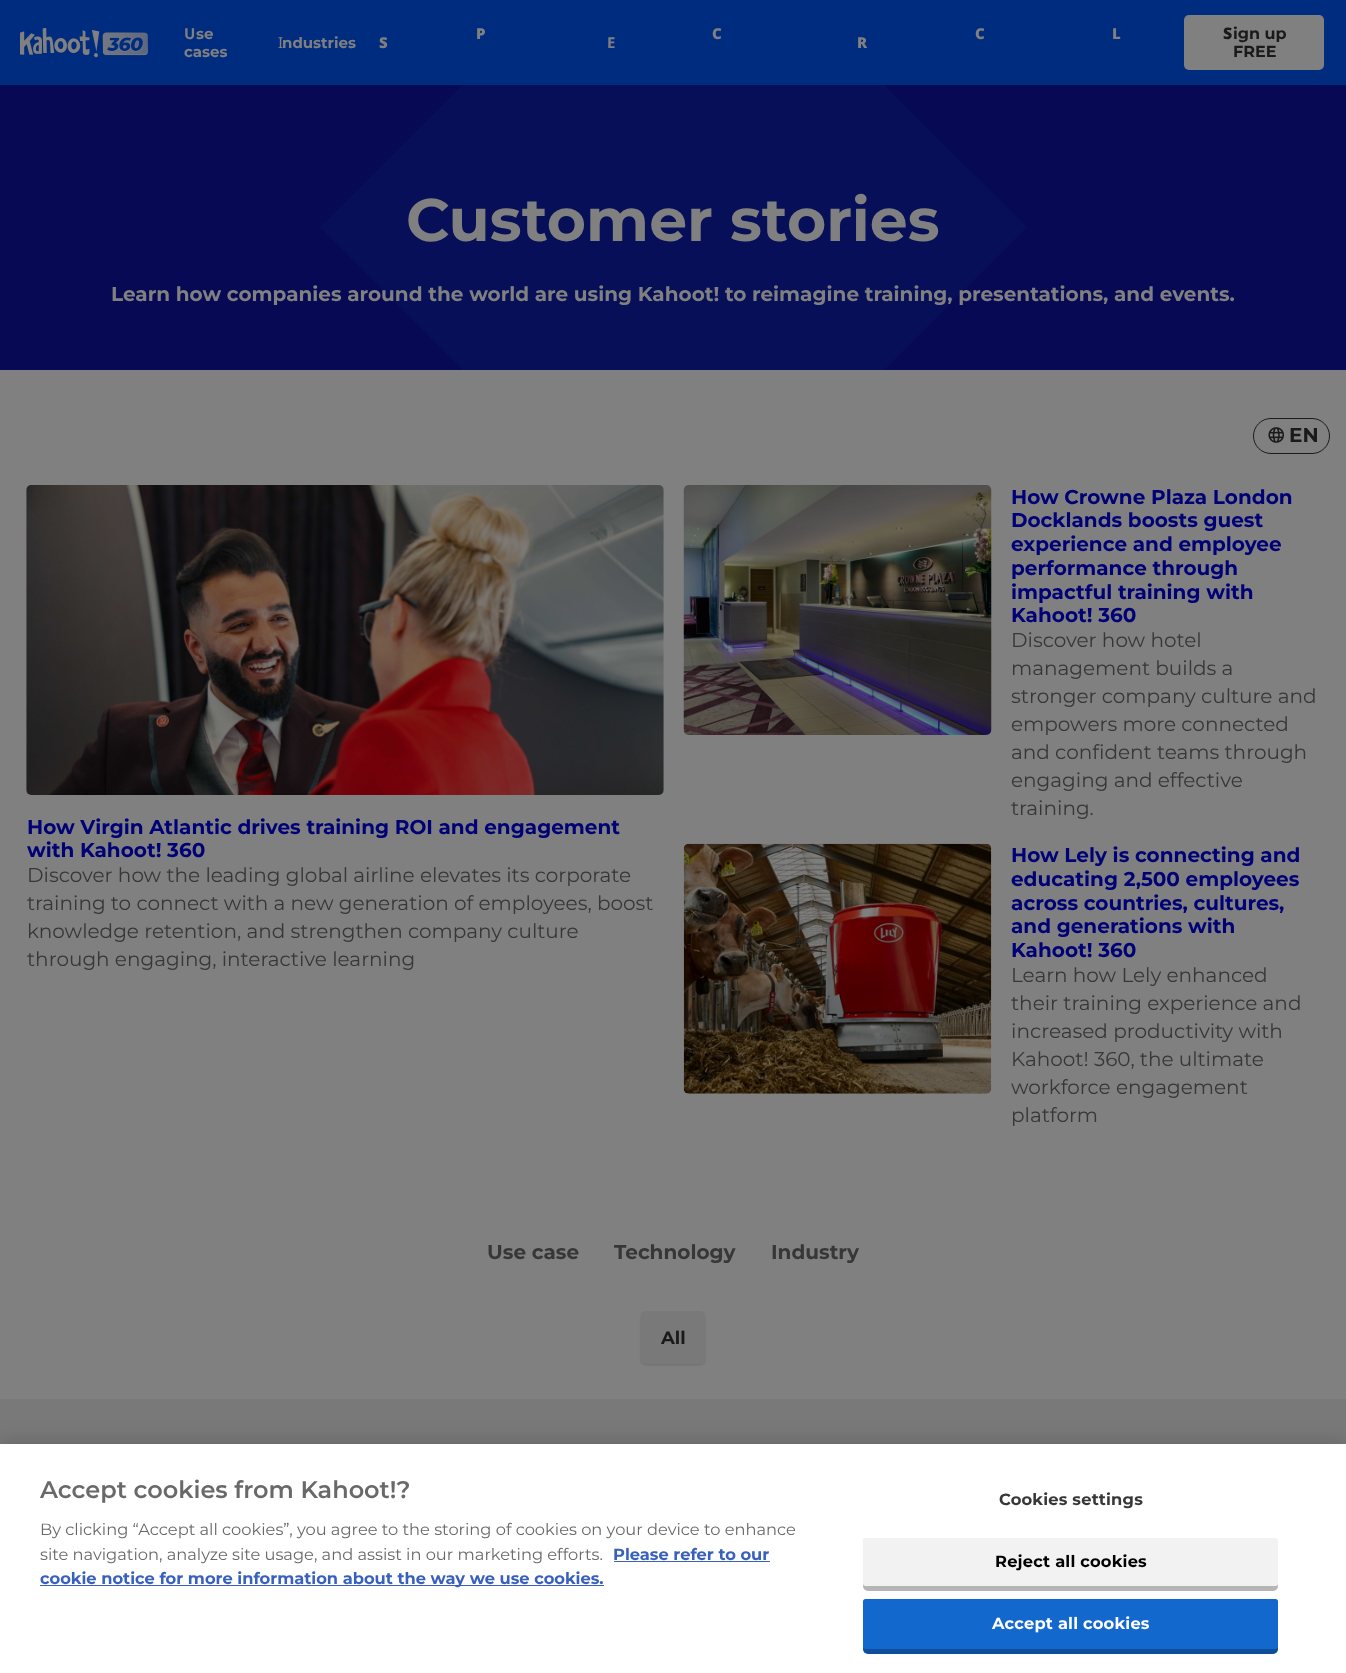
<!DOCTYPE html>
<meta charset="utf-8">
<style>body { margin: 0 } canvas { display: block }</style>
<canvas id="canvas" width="1346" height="1673"></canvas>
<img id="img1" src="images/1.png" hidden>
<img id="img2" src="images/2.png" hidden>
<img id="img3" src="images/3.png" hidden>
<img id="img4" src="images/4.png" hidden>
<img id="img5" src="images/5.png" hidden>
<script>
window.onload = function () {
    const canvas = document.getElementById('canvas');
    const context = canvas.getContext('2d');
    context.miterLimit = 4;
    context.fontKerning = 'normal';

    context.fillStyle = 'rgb(128, 128, 128)';
    context.fillRect(0, 0, 1346, 1673);
    context.fillStyle = 'rgb(0, 44, 128)';
    context.fillRect(0, 0, 1346, 85);
    context.drawImage(document.getElementById('img1'), 20, 28, 128, 30);
    context.fillStyle = 'rgb(128, 128, 128)';
    context.beginPath();
    context.roundRect(1184, 15, 140, 55, 5);
    context.fill();
    context.fillStyle = 'rgb(7, 9, 85)';
    context.fillRect(0, 85, 1346, 285);
    context.save();
    context.beginPath();
    context.rect(0, 85, 1346, 285);
    context.clip();
    context.fillStyle = 'rgb(6, 15, 87)';
    context.beginPath();
    context.moveTo(673, -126);
    context.lineTo(1027, 227);
    context.lineTo(673, 581);
    context.lineTo(320, 227);
    context.closePath();
    context.fill();
    context.restore();
    context.beginPath();
    context.roundRect(1253.5, 418.5, 76, 35, 17.5);
    context.strokeStyle = 'rgb(26, 26, 26)';
    context.stroke();
    context.drawImage(document.getElementById('img2'), 1268, 427, 16, 16);
    context.drawImage(document.getElementById('img3'), 26, 485, 638, 310);
    context.drawImage(document.getElementById('img4'), 683, 485, 309, 250);
    context.drawImage(document.getElementById('img5'), 683, 843, 309, 251);
    context.fillStyle = 'rgba(0, 0, 0, 0.15)';
    context.filter = 'blur(1px)';
    context.beginPath();
    context.roundRect(641, 1313, 64, 52, 5);
    context.fill();
    context.filter = 'none';
    context.fillStyle = 'rgb(121, 121, 121)';
    context.beginPath();
    context.roundRect(641, 1311, 64, 53, 5);
    context.fill();
    context.fillRect(0, 1399, 1346, 45);
    context.fillStyle = 'rgba(0, 0, 0, 0.2)';
    context.filter = 'blur(11px)';
    context.beginPath();
    context.rect(0, 1444, 1346, 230);
    context.fill();
    context.filter = 'none';
    context.fillStyle = 'rgb(255, 255, 255)';
    context.fillRect(0, 1444, 1346, 229);
    context.fillStyle = 'rgb(56, 96, 190)';
    context.fillRect(614, 1561, 156, 1);
    context.fillRect(40, 1585, 564, 1);
    context.fillStyle = 'rgb(242, 242, 242)';
    context.beginPath();
    context.roundRect(863, 1538, 415, 53, 5);
    context.fill();
    context.fillStyle = 'rgba(0, 0, 0, 0.25)';
    context.beginPath();
    context.roundRect(863, 1538, 415, 53, 5);
    context.fill();
    context.fillStyle = 'rgb(242, 242, 242)';
    context.beginPath();
    context.roundRect(863, 1538, 415, 48, 2.5);
    context.fill();
    context.fillStyle = 'rgb(19, 104, 206)';
    context.beginPath();
    context.roundRect(863, 1599, 415, 55, 5);
    context.fill();
    context.fillStyle = 'rgba(0, 0, 0, 0.25)';
    context.beginPath();
    context.roundRect(863, 1599, 415, 55, 5);
    context.fill();
    context.fillStyle = 'rgb(19, 104, 206)';
    context.beginPath();
    context.roundRect(863, 1599, 415, 50, 2.5);
    context.fill();
    context.font = 'bold 15px Noto Sans';
    context.fillStyle = 'rgb(128, 128, 128)';
    context.fillText('U', 184, 39);
    context.font = 'bold 15px Montserrat';
    context.fillText('se', 196, 39);
    context.fillText('cases', 184, 57);
    context.font = '900 15px Noto Sans';
    context.fillText('P', 476, 39);
    context.fillText('C', 712, 39);
    context.font = '15px Noto Sans';
    context.fillText('I', 278, 48);
    context.font = 'bold 15px Montserrat';
    context.fillText('ndustries', 282, 48);
    context.font = '900 15px Noto Sans';
    context.fillText('S', 379, 48);
    context.font = 'bold 15px Noto Sans';
    context.fillText('E', 607, 48);
    context.font = '900 15px Noto Sans';
    context.fillText('R', 857, 48);
    context.fillText('C', 975, 39);
    context.fillText('L', 1112, 39);
    context.font = '900 16px Noto Sans';
    context.fillStyle = 'rgb(26, 26, 26)';
    context.fillText('S', 1223, 39);
    context.font = 'bold 16px Montserrat';
    context.fillText('ign up', 1233, 39);
    context.fillText('FREE', 1233, 57);
    context.font = 'bold 60px Montserrat';
    context.fillStyle = 'rgb(128, 128, 128)';
    context.fillText('Customer stories', 406, 241);
    context.font = 'bold 20px Montserrat';
    context.fillText('Learn how companies around the world are using Kahoot! to reimagine training, presentations, and events.', 111, 301);
    context.fillStyle = 'rgb(26, 26, 26)';
    context.fillText('EN', 1289, 442);
    context.fillStyle = 'rgb(0, 0, 119)';
    context.fillText('How Virgin Atlantic drives training ROI and engagement', 27, 834);
    context.fillText('with Kahoot! 360', 27, 857);
    context.font = '20px Montserrat';
    context.fillStyle = 'rgb(55, 55, 55)';
    context.fillText('Discover how the leading global airline elevates its corporate', 27, 882);
    context.fillText('training to connect with a new generation of employees, boost', 27, 910);
    context.fillText('knowledge retention, and strengthen company culture', 27, 938);
    context.fillText('through engaging, interactive learning', 27, 966);
    context.font = 'bold 20px Montserrat';
    context.fillStyle = 'rgb(0, 0, 119)';
    context.fillText('How Crowne Plaza London', 1011, 504);
    context.fillText('Docklands boosts guest', 1011, 527);
    context.fillText('experience and employee', 1011, 551);
    context.fillText('performance through', 1011, 575);
    context.fillText('impactful training with', 1011, 599);
    context.fillText('Kahoot! 360', 1011, 622);
    context.font = '20px Montserrat';
    context.fillStyle = 'rgb(55, 55, 55)';
    context.fillText('Discover how hotel', 1011, 647);
    context.fillText('management builds a', 1011, 675);
    context.fillText('stronger company culture and', 1011, 703);
    context.fillText('empowers more connected', 1011, 731);
    context.fillText('and confident teams through', 1011, 759);
    context.fillText('engaging and effective', 1011, 787);
    context.fillText('training.', 1011, 815);
    context.font = 'bold 20px Montserrat';
    context.fillStyle = 'rgb(0, 0, 119)';
    context.fillText('How Lely is connecting and', 1011, 862);
    context.fillText('educating 2,500 employees', 1011, 886);
    context.fillText('across countries, cultures,', 1011, 910);
    context.fillText('and generations with', 1011, 933);
    context.fillText('Kahoot! 360', 1011, 957);
    context.font = '20px Montserrat';
    context.fillStyle = 'rgb(55, 55, 55)';
    context.fillText('Learn how Lely enhanced', 1011, 982);
    context.fillText('their training experience and', 1011, 1010);
    context.fillText('increased productivity with', 1011, 1038);
    context.fillText('Kahoot! 360, the ultimate', 1011, 1066);
    context.fillText('workforce engagement', 1011, 1094);
    context.fillText('platform', 1011, 1122);
    context.font = 'bold 20px Montserrat';
    context.fillText('Use case', 487, 1259);
    context.fillText('Technology', 614, 1259);
    context.fillText('Industry', 771, 1259);
    context.font = 'bold 18px Montserrat';
    context.fillStyle = 'rgb(26, 26, 26)';
    context.fillText('All', 661, 1344);
    context.font = '600 24px Montserrat';
    context.fillStyle = 'rgb(105, 105, 105)';
    context.fillText('Accept cookies from Kahoot!?', 40, 1498);
    context.font = '16.25px Montserrat';
    context.fillText('By clicking “Accept all cookies”, you agree to the storing of cookies on your device to enhance', 40, 1535);
    context.fillText('site navigation, analyze site usage, and assist in our marketing efforts.', 40, 1560);
    context.font = 'bold 16.25px Montserrat';
    context.fillStyle = 'rgb(56, 96, 190)';
    context.fillText('Please refer to our', 613, 1560);
    context.fillText('cookie notice for more information about the way we use cookies.', 40, 1584);
    context.letterSpacing = '0.2px';
    context.fillStyle = 'rgb(55, 55, 55)';
    context.fillText('Cookies settings', 999, 1505);
    context.fillStyle = 'rgb(0, 0, 0)';
    context.fillText('Reject all cookies', 995, 1567);
    context.fillStyle = 'rgb(255, 255, 255)';
    context.fillText('Accept all cookies', 992, 1629);
};
</script>
